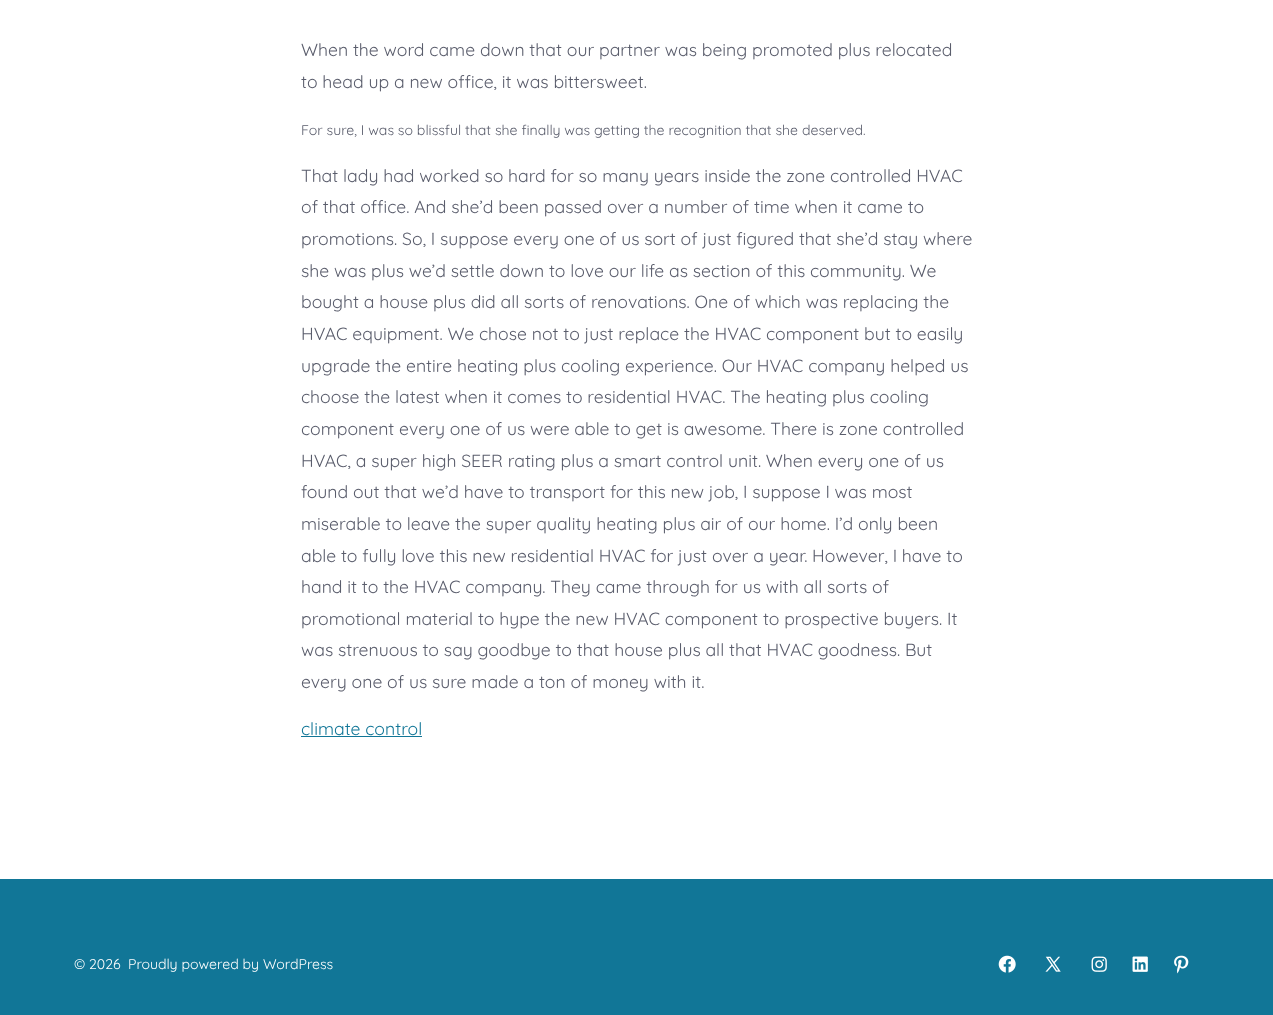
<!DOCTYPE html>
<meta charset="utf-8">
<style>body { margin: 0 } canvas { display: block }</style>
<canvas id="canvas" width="1273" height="1015"></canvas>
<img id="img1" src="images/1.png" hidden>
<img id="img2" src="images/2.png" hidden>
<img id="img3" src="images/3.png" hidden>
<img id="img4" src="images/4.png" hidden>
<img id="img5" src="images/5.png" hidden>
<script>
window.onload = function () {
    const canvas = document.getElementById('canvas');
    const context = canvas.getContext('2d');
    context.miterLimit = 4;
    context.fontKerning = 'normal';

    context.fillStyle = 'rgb(255, 255, 255)';
    context.fillRect(0, 0, 1273, 1015);
    context.fillStyle = 'rgb(17, 118, 151)';
    context.fillRect(301, 736, 121, 1);
    context.fillRect(0, 879, 1273, 136);
    context.drawImage(document.getElementById('img1'), 998, 955, 18, 18);
    context.drawImage(document.getElementById('img2'), 1045, 956, 16, 16);
    context.drawImage(document.getElementById('img3'), 1091, 956, 16, 16);
    context.drawImage(document.getElementById('img4'), 1132, 956, 16, 16);
    context.drawImage(document.getElementById('img5'), 1174, 955, 15, 19);
    context.font = '17.6px Quicksand';
    context.fillStyle = 'rgb(90, 93, 108)';
    context.fillText('When the word came down that our partner was being promoted plus relocated', 301, 56);
    context.fillText('to head up a new office, it was bittersweet.', 301, 88);
    context.font = '14.1px Quicksand';
    context.fillText('For sure, I was so blissful that she finally was getting the recognition that she deserved.', 301, 135);
    context.font = '17.6px Quicksand';
    context.fillText('That lady had worked so hard for so many years inside the zone controlled HVAC', 301, 182);
    context.fillText('of that office. And she’d been passed over a number of time when it came to', 301, 213);
    context.fillText('promotions. So, I suppose every one of us sort of just figured that she’d stay where', 301, 245);
    context.fillText('she was plus we’d settle down to love our life as section of this community. We', 301, 277);
    context.fillText('bought a house plus did all sorts of renovations. One of which was replacing the', 301, 308);
    context.fillText('HVAC equipment. We chose not to just replace the HVAC component but to easily', 301, 340);
    context.fillText('upgrade the entire heating plus cooling experience. Our HVAC company helped us', 301, 372);
    context.fillText('choose the latest when it comes to residential HVAC. The heating plus cooling', 301, 403);
    context.fillText('component every one of us were able to get is awesome. There is zone controlled', 301, 435);
    context.fillText('HVAC, a super high SEER rating plus a smart control unit. When every one of us', 301, 467);
    context.fillText('found out that we’d have to transport for this new job, I suppose I was most', 301, 498);
    context.fillText('miserable to leave the super quality heating plus air of our home. I’d only been', 301, 530);
    context.fillText('able to fully love this new residential HVAC for just over a year. However, I have to', 301, 562);
    context.fillText('hand it to the HVAC company. They came through for us with all sorts of', 301, 593);
    context.fillText('promotional material to hype the new HVAC component to prospective buyers. It', 301, 625);
    context.fillText('was strenuous to say goodbye to that house plus all that HVAC goodness. But', 301, 656);
    context.fillText('every one of us sure made a ton of money with it.', 301, 688);
    context.fillStyle = 'rgb(17, 118, 151)';
    context.fillText('climate control', 301, 735);
    context.font = '14.1px Quicksand';
    context.fillStyle = 'rgb(255, 255, 255)';
    context.fillText('© 2026', 74, 969);
    context.fillText('Proudly powered by WordPress', 128, 969);
};
</script>
